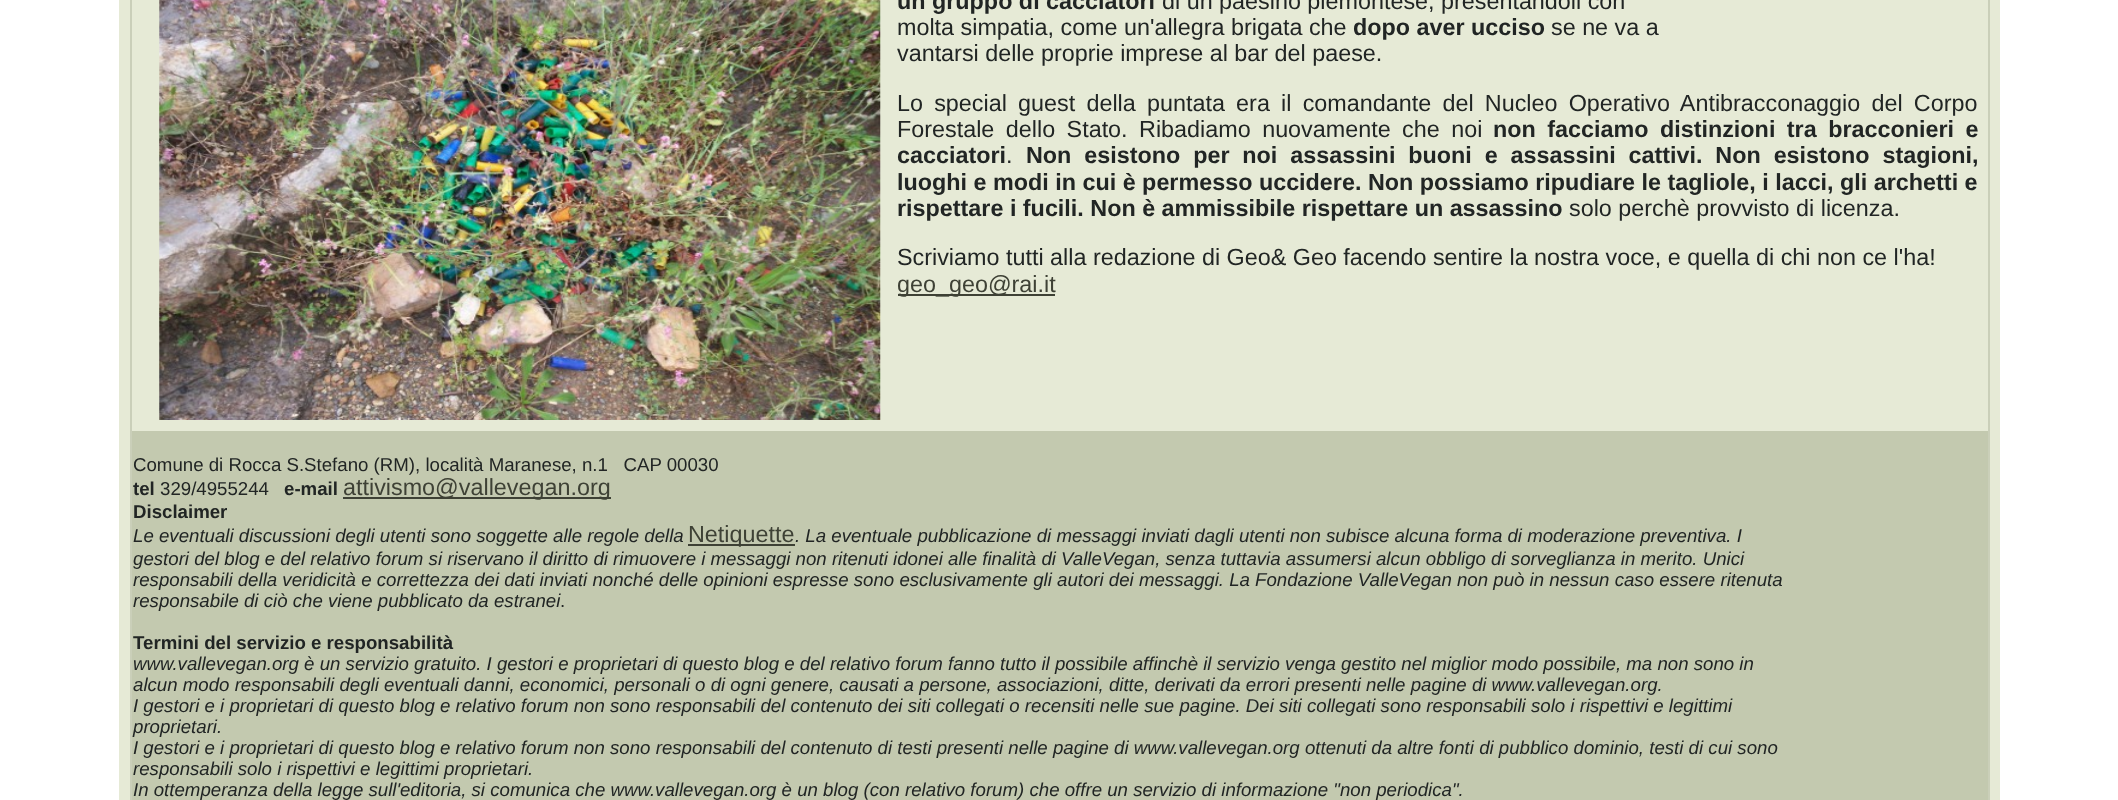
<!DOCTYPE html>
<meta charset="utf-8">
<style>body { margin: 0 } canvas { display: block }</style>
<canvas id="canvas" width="2118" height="800"></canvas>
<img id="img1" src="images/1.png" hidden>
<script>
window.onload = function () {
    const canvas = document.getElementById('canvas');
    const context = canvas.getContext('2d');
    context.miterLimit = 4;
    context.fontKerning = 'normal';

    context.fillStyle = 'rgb(255, 255, 255)';
    context.fillRect(0, 0, 2118, 800);
    context.fillStyle = 'rgb(230, 234, 214)';
    context.fillRect(119, 0, 1881, 800);
    context.fillStyle = 'rgb(202, 207, 185)';
    context.fillRect(1988, 0, 2, 800);
    context.fillRect(130, 0, 2, 800);
    context.drawImage(document.getElementById('img1'), 159, 0, 722, 420);
    context.fillStyle = 'rgb(62, 65, 53)';
    context.fillRect(898, 294, 157, 2);
    context.fillStyle = 'rgb(195, 201, 175)';
    context.fillRect(132, 431, 1856, 369);
    context.fillStyle = 'rgb(62, 65, 53)';
    context.fillRect(343, 497, 268, 2);
    context.fillRect(688, 544, 107, 2);
    context.font = 'bold 23.35px Liberation Sans';
    context.fillStyle = 'rgb(33, 37, 36)';
    context.fillText('un gruppo di cacciatori', 897, 9);
    context.font = '23.35px Liberation Sans';
    context.fillText('di un paesino piemontese, presentandoli con', 1162, 9);
    context.fillText('molta simpatia, come un\'allegra brigata che', 897, 35);
    context.font = 'bold 23.35px Liberation Sans';
    context.fillText('dopo aver ucciso', 1353, 35);
    context.font = '23.35px Liberation Sans';
    context.fillText('se ne va a', 1551, 35);
    context.fillText('vantarsi delle proprie imprese al bar del paese.', 897, 61);
    context.wordSpacing = '4.75px';
    context.fillText('Lo special guest della puntata era il comandante del Nucleo Operativo Antibracconaggio del Corpo', 897, 111);
    context.wordSpacing = '5px';
    context.fillText('Forestale dello Stato. Ribadiamo nuovamente che noi', 897, 137);
    context.font = 'bold 23.35px Liberation Sans';
    context.fillText('non facciamo distinzioni tra bracconieri e', 1493, 137);
    context.wordSpacing = '0px';
    context.fillText('cacciatori', 897, 163);
    context.font = '23.35px Liberation Sans';
    context.fillText('.', 1006, 163);
    context.wordSpacing = '6.4px';
    context.font = 'bold 23.35px Liberation Sans';
    context.fillText('Non esistono per noi assassini buoni e assassini cattivi. Non esistono stagioni,', 1026, 163);
    context.wordSpacing = '0px';
    context.fillText('luoghi e modi in cui è permesso uccidere. Non possiamo ripudiare le tagliole, i lacci, gli archetti e', 897, 190);
    context.fillText('rispettare i fucili. Non è ammissibile rispettare un assassino', 897, 216);
    context.font = '23.35px Liberation Sans';
    context.fillText('solo perchè provvisto di licenza.', 1569, 216);
    context.fillText('Scriviamo tutti alla redazione di Geo& Geo facendo sentire la nostra voce, e quella di chi non ce l\'ha!', 897, 265);
    context.fillStyle = 'rgb(62, 65, 53)';
    context.fillText('geo_geo@rai.it', 897, 292);
    context.font = '18.67px Liberation Sans';
    context.fillStyle = 'rgb(33, 37, 36)';
    context.fillText('Comune di Rocca S.Stefano (RM), località Maranese, n.1   CAP 00030', 133, 471);
    context.font = 'bold 18.67px Liberation Sans';
    context.fillText('tel', 133, 495);
    context.font = '18.67px Liberation Sans';
    context.fillText('329/4955244', 160, 495);
    context.font = 'bold 18.67px Liberation Sans';
    context.fillText('e-mail', 284, 495);
    context.font = '23.35px Liberation Sans';
    context.fillStyle = 'rgb(62, 65, 53)';
    context.fillText('attivismo@vallevegan.org', 343, 495);
    context.font = 'bold 18.67px Liberation Sans';
    context.fillStyle = 'rgb(33, 37, 36)';
    context.fillText('Disclaimer', 133, 518);
    context.font = 'italic 18.67px Liberation Sans';
    context.fillText('Le eventuali discussioni degli utenti sono soggette alle regole della', 133, 542);
    context.font = '23.35px Liberation Sans';
    context.fillStyle = 'rgb(62, 65, 53)';
    context.fillText('Netiquette', 688, 542);
    context.font = 'italic 18.67px Liberation Sans';
    context.fillStyle = 'rgb(33, 37, 36)';
    context.fillText('. La eventuale pubblicazione di messaggi inviati dagli utenti non subisce alcuna forma di moderazione preventiva. I', 795, 542);
    context.fillText('gestori del blog e del relativo forum si riservano il diritto di rimuovere i messaggi non ritenuti idonei alle finalità di ValleVegan, senza tuttavia assumersi alcun obbligo di sorveglianza in merito. Unici', 133, 565);
    context.fillText('responsabili della veridicità e correttezza dei dati inviati nonché delle opinioni espresse sono esclusivamente gli autori dei messaggi. La Fondazione ValleVegan non può in nessun caso essere ritenuta', 133, 586);
    context.fillText('responsabile di ciò che viene pubblicato da estranei', 133, 607);
    context.font = '18.67px Liberation Sans';
    context.fillText('.', 560, 607);
    context.font = 'bold 18.67px Liberation Sans';
    context.fillText('Termini del servizio e responsabilità', 133, 649);
    context.font = 'italic 18.67px Liberation Sans';
    context.fillText('www.vallevegan.org è un servizio gratuito. I gestori e proprietari di questo blog e del relativo forum fanno tutto il possibile affinchè il servizio venga gestito nel miglior modo possibile, ma non sono in', 133, 670);
    context.fillText('alcun modo responsabili degli eventuali danni, economici, personali o di ogni genere, causati a persone, associazioni, ditte, derivati da errori presenti nelle pagine di www.vallevegan.org.', 133, 691);
    context.fillText('I gestori e i proprietari di questo blog e relativo forum non sono responsabili del contenuto dei siti collegati o recensiti nelle sue pagine. Dei siti collegati sono responsabili solo i rispettivi e legittimi', 133, 712);
    context.fillText('proprietari.', 133, 733);
    context.fillText('I gestori e i proprietari di questo blog e relativo forum non sono responsabili del contenuto di testi presenti nelle pagine di www.vallevegan.org ottenuti da altre fonti di pubblico dominio, testi di cui sono', 133, 754);
    context.fillText('responsabili solo i rispettivi e legittimi proprietari.', 133, 775);
    context.fillText('In ottemperanza della legge sull\'editoria, si comunica che www.vallevegan.org è un blog (con relativo forum) che offre un servizio di informazione "non periodica".', 133, 796);
};
</script>
